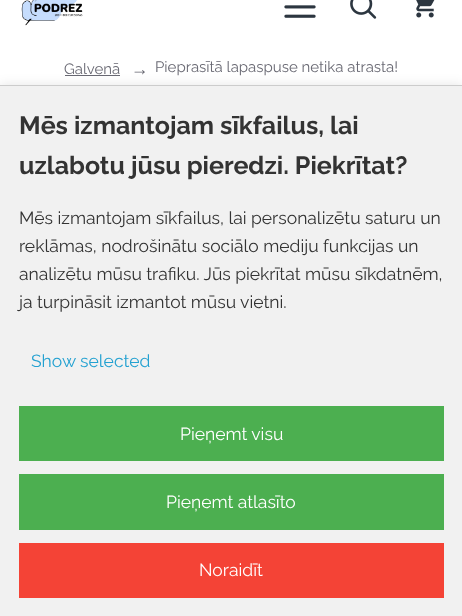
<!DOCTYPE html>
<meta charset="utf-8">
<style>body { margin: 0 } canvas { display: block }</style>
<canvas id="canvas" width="462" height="616"></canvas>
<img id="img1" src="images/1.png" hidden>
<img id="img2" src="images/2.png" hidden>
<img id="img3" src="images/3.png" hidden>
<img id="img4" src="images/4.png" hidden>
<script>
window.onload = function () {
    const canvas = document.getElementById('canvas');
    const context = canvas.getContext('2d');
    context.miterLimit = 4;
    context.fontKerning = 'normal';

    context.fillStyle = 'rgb(255, 255, 255)';
    context.fillRect(0, 0, 462, 616);
    context.drawImage(document.getElementById('img1'), 21, 0, 62, 26);
    context.drawImage(document.getElementById('img2'), 284, 5, 32, 13);
    context.drawImage(document.getElementById('img3'), 350, 0, 27, 19);
    context.drawImage(document.getElementById('img4'), 416, 0, 19, 18);
    context.fillStyle = 'rgb(105, 105, 115)';
    context.fillRect(65, 75, 55, 1);
    context.fillStyle = 'rgba(0, 0, 0, 0.1)';
    context.filter = 'blur(6px)';
    context.beginPath();
    context.rect(0, 85, 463, 531);
    context.fill();
    context.filter = 'none';
    context.fillStyle = 'rgb(241, 241, 241)';
    context.fillRect(0, 86, 462, 530);
    context.fillStyle = 'rgb(204, 204, 204)';
    context.fillRect(0, 85, 462, 1);
    context.fillStyle = 'rgb(76, 175, 80)';
    context.fillRect(19, 406, 425, 55);
    context.fillRect(19, 474, 425, 56);
    context.fillStyle = 'rgb(244, 67, 54)';
    context.fillRect(19, 543, 425, 55);
    context.font = '15px Raleway';
    context.fillStyle = 'rgb(105, 105, 115)';
    context.fillText('Galvenā', 64, 74);
    context.font = '17.5px Liberation Serif';
    context.fillText('→', 131, 75);
    context.font = '15px Raleway';
    context.fillText('Pieprasītā lapaspuse netika atrasta!', 155, 72);
    context.font = 'bold 25px Raleway';
    context.fillStyle = 'rgb(51, 51, 51)';
    context.fillText('Mēs izmantojam sīkfailus, lai', 19, 134);
    context.fillText('uzlabotu jūsu pieredzi. Piekrītat?', 19, 174);
    context.font = '17.5px Raleway';
    context.fillText('Mēs izmantojam sīkfailus, lai personalizētu saturu un', 19, 224);
    context.fillText('reklāmas, nodrošinātu sociālo mediju funkcijas un', 19, 252);
    context.fillText('analizētu mūsu trafiku. Jūs piekrītat mūsu sīkdatnēm,', 19, 280);
    context.fillText('ja turpināsit izmantot mūsu vietni.', 19, 308);
    context.fillStyle = 'rgb(35, 161, 209)';
    context.fillText('Show selected', 31, 367);
    context.fillStyle = 'rgb(255, 255, 255)';
    context.fillText('Pieņemt visu', 180, 440);
    context.fillText('Pieņemt atlasīto', 166, 508);
    context.fillText('Noraidīt', 199, 576);
};
</script>
